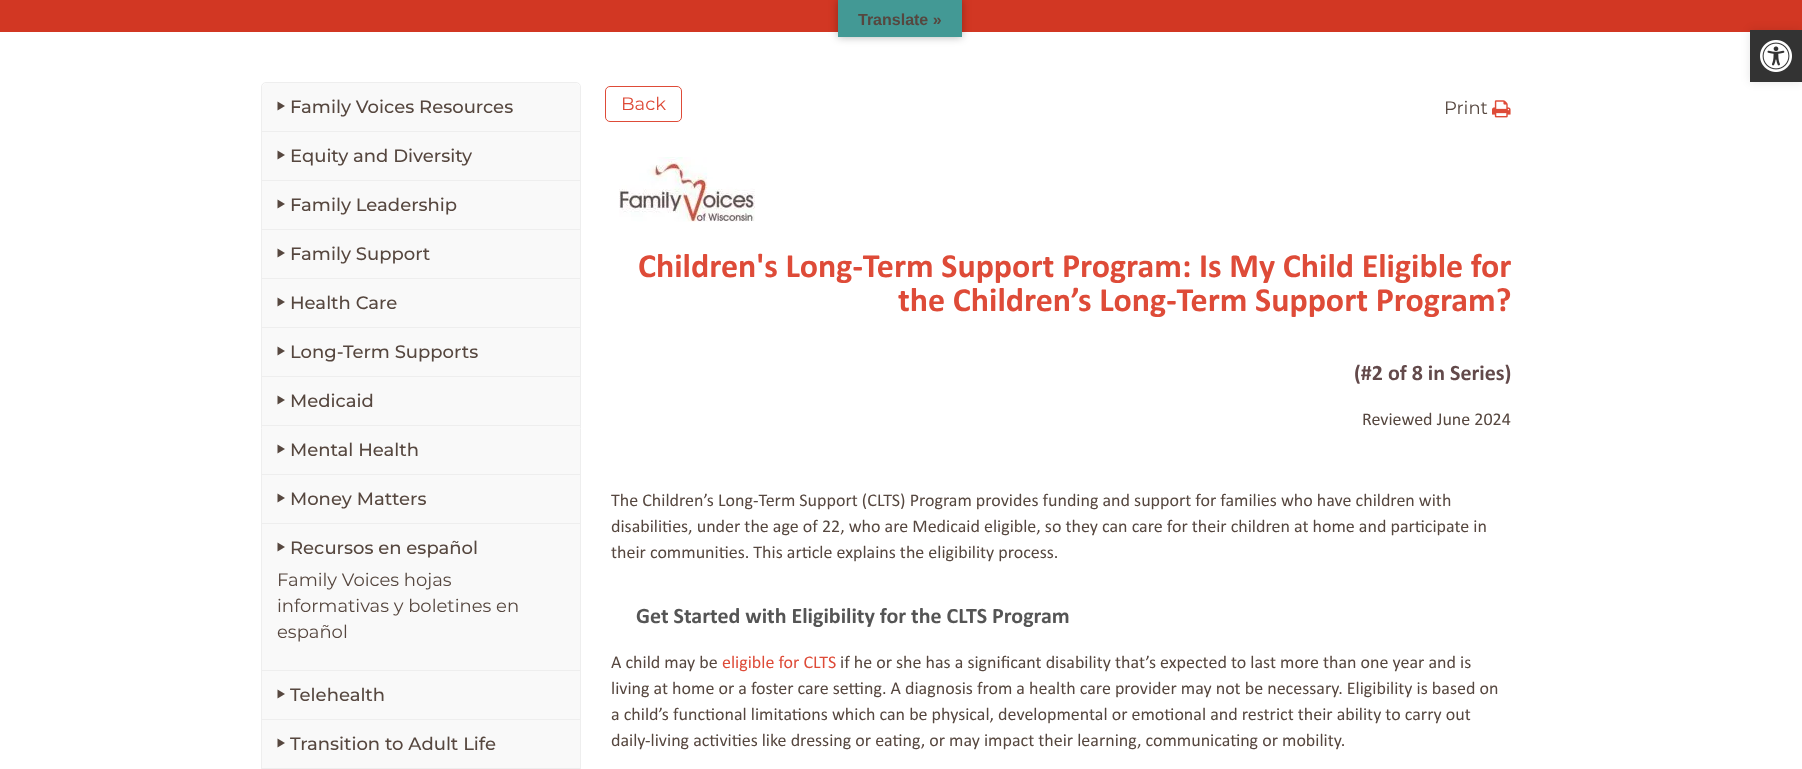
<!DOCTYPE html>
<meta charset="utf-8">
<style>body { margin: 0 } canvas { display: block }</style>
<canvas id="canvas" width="1802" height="769"></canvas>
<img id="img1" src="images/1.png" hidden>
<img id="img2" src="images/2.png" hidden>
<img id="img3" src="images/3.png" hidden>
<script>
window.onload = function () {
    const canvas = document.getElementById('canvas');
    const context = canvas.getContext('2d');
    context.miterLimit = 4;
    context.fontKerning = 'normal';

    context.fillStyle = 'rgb(255, 255, 255)';
    context.fillRect(0, 0, 1802, 769);
    context.fillStyle = 'rgb(210, 55, 35)';
    context.fillRect(0, 0, 1802, 32);
    context.fillStyle = 'rgba(0, 0, 0, 0.3)';
    context.filter = 'blur(4.5px)';
    context.beginPath();
    context.rect(838, 0, 124, 37);
    context.fill();
    context.filter = 'none';
    context.fillStyle = 'rgb(67, 153, 149)';
    context.fillRect(838, 0, 124, 37);
    context.fillStyle = 'rgba(0, 0, 0, 0.1)';
    context.filter = 'blur(5px)';
    context.beginPath();
    context.rect(1750, 30, 52, 52);
    context.fill();
    context.filter = 'none';
    context.fillStyle = 'rgb(51, 51, 51)';
    context.fillRect(1750, 30, 52, 52);
    context.drawImage(document.getElementById('img1'), 1760, 40, 32, 32);
    context.beginPath();
    context.roundRect(261.5, 82.5, 319, 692, 4.5);
    context.strokeStyle = 'rgb(238, 238, 238)';
    context.stroke();
    context.fillStyle = 'rgb(249, 249, 249)';
    context.beginPath();
    context.roundRect(262, 83, 318, 49, [5, 5, 0, 0]);
    context.fill();
    context.fillStyle = 'rgb(238, 238, 238)';
    context.fillRect(262, 131, 318, 1);
    context.fillStyle = 'rgb(86, 71, 63)';
    context.beginPath();
    context.moveTo(277.5, 101.5);
    context.lineTo(285, 106);
    context.lineTo(277.5, 110.5);
    context.closePath();
    context.fill();
    context.fillStyle = 'rgb(249, 249, 249)';
    context.fillRect(262, 132, 318, 48);
    context.fillStyle = 'rgb(238, 238, 238)';
    context.fillRect(262, 180, 318, 1);
    context.fillStyle = 'rgb(86, 71, 63)';
    context.beginPath();
    context.moveTo(277.5, 150.5);
    context.lineTo(285, 155);
    context.lineTo(277.5, 159.5);
    context.closePath();
    context.fill();
    context.fillStyle = 'rgb(249, 249, 249)';
    context.fillRect(262, 181, 318, 48);
    context.fillStyle = 'rgb(238, 238, 238)';
    context.fillRect(262, 229, 318, 1);
    context.fillStyle = 'rgb(86, 71, 63)';
    context.beginPath();
    context.moveTo(277.5, 199.5);
    context.lineTo(285, 204);
    context.lineTo(277.5, 208.5);
    context.closePath();
    context.fill();
    context.fillStyle = 'rgb(249, 249, 249)';
    context.fillRect(262, 230, 318, 48);
    context.fillStyle = 'rgb(238, 238, 238)';
    context.fillRect(262, 278, 318, 1);
    context.fillStyle = 'rgb(86, 71, 63)';
    context.beginPath();
    context.moveTo(277.5, 248.5);
    context.lineTo(285, 253);
    context.lineTo(277.5, 257.5);
    context.closePath();
    context.fill();
    context.fillStyle = 'rgb(249, 249, 249)';
    context.fillRect(262, 279, 318, 48);
    context.fillStyle = 'rgb(238, 238, 238)';
    context.fillRect(262, 327, 318, 1);
    context.fillStyle = 'rgb(86, 71, 63)';
    context.beginPath();
    context.moveTo(277.5, 297.5);
    context.lineTo(285, 302);
    context.lineTo(277.5, 306.5);
    context.closePath();
    context.fill();
    context.fillStyle = 'rgb(249, 249, 249)';
    context.fillRect(262, 328, 318, 48);
    context.fillStyle = 'rgb(238, 238, 238)';
    context.fillRect(262, 376, 318, 1);
    context.fillStyle = 'rgb(86, 71, 63)';
    context.beginPath();
    context.moveTo(277.5, 346.5);
    context.lineTo(285, 351);
    context.lineTo(277.5, 355.5);
    context.closePath();
    context.fill();
    context.fillStyle = 'rgb(249, 249, 249)';
    context.fillRect(262, 377, 318, 48);
    context.fillStyle = 'rgb(238, 238, 238)';
    context.fillRect(262, 425, 318, 1);
    context.fillStyle = 'rgb(86, 71, 63)';
    context.beginPath();
    context.moveTo(277.5, 395.5);
    context.lineTo(285, 400);
    context.lineTo(277.5, 404.5);
    context.closePath();
    context.fill();
    context.fillStyle = 'rgb(249, 249, 249)';
    context.fillRect(262, 426, 318, 48);
    context.fillStyle = 'rgb(238, 238, 238)';
    context.fillRect(262, 474, 318, 1);
    context.fillStyle = 'rgb(86, 71, 63)';
    context.beginPath();
    context.moveTo(277.5, 444.5);
    context.lineTo(285, 449);
    context.lineTo(277.5, 453.5);
    context.closePath();
    context.fill();
    context.fillStyle = 'rgb(249, 249, 249)';
    context.fillRect(262, 475, 318, 48);
    context.fillStyle = 'rgb(238, 238, 238)';
    context.fillRect(262, 523, 318, 1);
    context.fillStyle = 'rgb(86, 71, 63)';
    context.beginPath();
    context.moveTo(277.5, 493.5);
    context.lineTo(285, 498);
    context.lineTo(277.5, 502.5);
    context.closePath();
    context.fill();
    context.fillStyle = 'rgb(249, 249, 249)';
    context.fillRect(262, 524, 318, 146);
    context.fillStyle = 'rgb(238, 238, 238)';
    context.fillRect(262, 670, 318, 1);
    context.fillStyle = 'rgb(86, 71, 63)';
    context.beginPath();
    context.moveTo(277.5, 542.5);
    context.lineTo(285, 547);
    context.lineTo(277.5, 551.5);
    context.closePath();
    context.fill();
    context.fillStyle = 'rgb(249, 249, 249)';
    context.fillRect(262, 671, 318, 48);
    context.fillStyle = 'rgb(238, 238, 238)';
    context.fillRect(262, 719, 318, 1);
    context.fillStyle = 'rgb(86, 71, 63)';
    context.beginPath();
    context.moveTo(277.5, 689.5);
    context.lineTo(285, 694);
    context.lineTo(277.5, 698.5);
    context.closePath();
    context.fill();
    context.fillStyle = 'rgb(249, 249, 249)';
    context.fillRect(262, 720, 318, 48);
    context.fillStyle = 'rgb(238, 238, 238)';
    context.fillRect(262, 768, 318, 1);
    context.fillStyle = 'rgb(86, 71, 63)';
    context.beginPath();
    context.moveTo(277.5, 738.5);
    context.lineTo(285, 743);
    context.lineTo(277.5, 747.5);
    context.closePath();
    context.fill();
    context.beginPath();
    context.roundRect(605.5, 86.5, 76, 35, 4.5);
    context.strokeStyle = 'rgb(222, 75, 56)';
    context.stroke();
    context.drawImage(document.getElementById('img2'), 1492, 100, 19, 18);
    context.drawImage(document.getElementById('img3'), 619, 157, 136, 65);
    context.font = 'bold 16px Liberation Sans';
    context.fillText('Translate »', 858, 25);
    context.font = '500 18px Montserrat';
    context.fillText('Family Voices Resources', 290, 113);
    context.fillText('Equity and Diversity', 290, 162);
    context.fillText('Family Leadership', 290, 211);
    context.fillText('Family Support', 290, 260);
    context.fillText('Health Care', 290, 309);
    context.fillText('Long-Term Supports', 290, 358);
    context.fillText('Medicaid', 290, 407);
    context.fillText('Mental Health', 290, 456);
    context.fillText('Money Matters', 290, 505);
    context.fillText('Recursos en español', 290, 554);
    context.font = '18px Montserrat';
    context.fillText('Family Voices hojas', 277, 586);
    context.fillText('informativas y boletines en', 277, 612);
    context.fillText('español', 277, 638);
    context.font = '500 18px Montserrat';
    context.fillText('Telehealth', 290, 701);
    context.fillText('Transition to Adult Life', 290, 750);
    context.font = '18px Montserrat';
    context.fillStyle = 'rgb(222, 75, 56)';
    context.fillText('Back', 621, 110);
    context.fillStyle = 'rgb(86, 71, 63)';
    context.fillText('Print', 1444, 114);
    context.font = 'bold 34px Calibri';
    context.fillStyle = 'rgb(222, 75, 56)';
    context.fillText('Children\'s Long-Term Support Program: Is My Child Eligible for', 638, 277);
    context.fillText('the Children’s Long-Term Support Program?', 898, 311);
    context.font = 'bold 22px Calibri';
    context.fillStyle = 'rgb(99, 74, 75)';
    context.fillText('(#2 of 8 in Series)', 1354, 380);
    context.font = '18px Calibri';
    context.fillStyle = 'rgb(86, 71, 63)';
    context.fillText('Reviewed June 2024', 1362, 425);
    context.fillText('The Children’s Long-Term Support (CLTS) Program provides funding and support for families who have children with', 611, 506);
    context.fillText('disabilities, under the age of 22, who are Medicaid eligible, so they can care for their children at home and participate in', 611, 532);
    context.fillText('their communities. This article explains the eligibility process.', 611, 558);
    context.font = 'bold 22px Calibri';
    context.fillStyle = 'rgb(85, 85, 85)';
    context.fillText('Get Started with Eligibility for the CLTS Program', 636, 623);
    context.font = '18px Calibri';
    context.fillStyle = 'rgb(86, 71, 63)';
    context.fillText('A child may be', 611, 668);
    context.fillStyle = 'rgb(222, 75, 56)';
    context.fillText('eligible for CLTS', 722, 668);
    context.fillStyle = 'rgb(86, 71, 63)';
    context.fillText('if he or she has a significant disability that’s expected to last more than one year and is', 840, 668);
    context.fillText('living at home or a foster care setting. A diagnosis from a health care provider may not be necessary. Eligibility is based on', 611, 694);
    context.fillText('a child’s functional limitations which can be physical, developmental or emotional and restrict their ability to carry out', 611, 720);
    context.fillText('daily-living activities like dressing or eating, or may impact their learning, communicating or mobility.', 611, 746);
};
</script>
